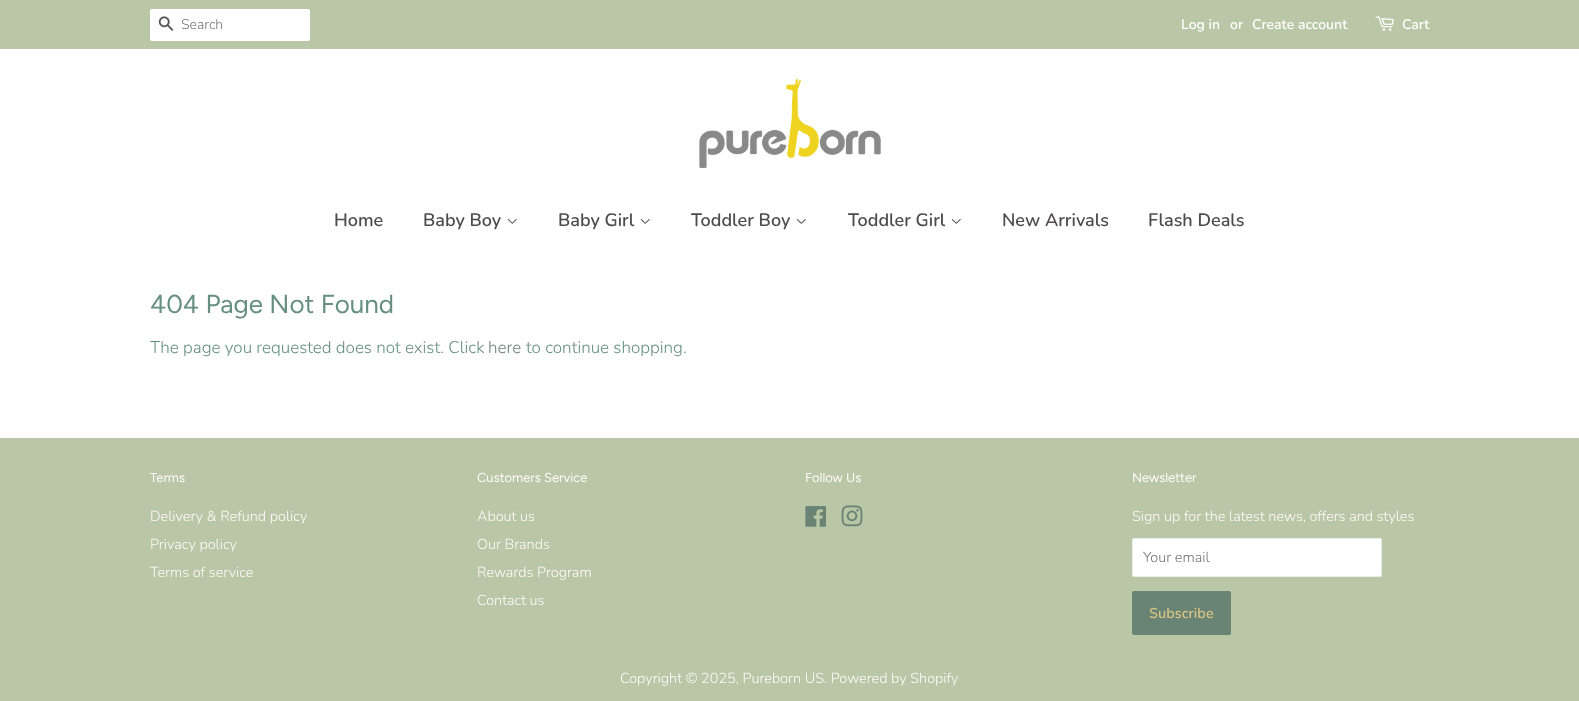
<!DOCTYPE html>
<meta charset="utf-8">
<style>body { margin: 0 } canvas { display: block }</style>
<canvas id="canvas" width="1579" height="701"></canvas>
<img id="img1" src="images/1.png" hidden>
<img id="img2" src="images/2.png" hidden>
<img id="img3" src="images/3.png" hidden>
<img id="img4" src="images/4.png" hidden>
<img id="img5" src="images/5.png" hidden>
<img id="img6" src="images/6.png" hidden>
<script>
window.onload = function () {
    const canvas = document.getElementById('canvas');
    const context = canvas.getContext('2d');
    context.miterLimit = 4;
    context.fontKerning = 'normal';

    context.fillStyle = 'rgb(255, 255, 255)';
    context.fillRect(0, 0, 1579, 701);
    context.fillStyle = 'rgb(186, 199, 167)';
    context.fillRect(0, 0, 1579, 49);
    context.fillStyle = 'rgb(255, 255, 255)';
    context.beginPath();
    context.roundRect(150, 9, 160, 32, 2);
    context.fill();
    context.drawImage(document.getElementById('img1'), 158, 16, 16, 15);
    context.drawImage(document.getElementById('img2'), 1375, 16, 19, 15);
    context.drawImage(document.getElementById('img3'), 699, 79, 182, 89);
    context.drawImage(document.getElementById('img4'), 507, 219, 10, 5);
    context.drawImage(document.getElementById('img4'), 640, 219, 10, 5);
    context.drawImage(document.getElementById('img4'), 796, 219, 10, 5);
    context.drawImage(document.getElementById('img4'), 951, 219, 10, 5);
    context.fillStyle = 'rgb(186, 199, 167)';
    context.fillRect(0, 438, 1579, 263);
    context.drawImage(document.getElementById('img5'), 805, 506, 21, 21);
    context.drawImage(document.getElementById('img6'), 841, 505, 22, 22);
    context.fillStyle = 'rgb(255, 255, 255)';
    context.beginPath();
    context.roundRect(1132, 538, 250, 39, 2);
    context.fill();
    context.beginPath();
    context.roundRect(1132.5, 538.5, 249, 38, 1.5);
    context.strokeStyle = 'rgba(102, 143, 128, 0.15)';
    context.stroke();
    context.fillStyle = 'rgb(105, 132, 116)';
    context.beginPath();
    context.roundRect(1132, 591, 99, 44, 2);
    context.fill();
    context.font = '300 14px Nunito';
    context.fillStyle = 'rgb(117, 117, 117)';
    context.fillText('Search', 181, 29);
    context.font = '600 14px Nunito';
    context.fillStyle = 'rgb(255, 255, 255)';
    context.fillText('Log in', 1181, 29);
    context.fillText('or', 1230, 29);
    context.fillText('Create account', 1252, 29);
    context.fillText('Cart', 1402, 29);
    context.font = '600 18px Nunito';
    context.fillStyle = 'rgb(78, 75, 75)';
    context.fillText('Home', 334, 226);
    context.fillText('Baby Boy', 423, 226);
    context.fillText('Baby Girl', 558, 226);
    context.fillText('Toddler Boy', 691, 226);
    context.fillText('Toddler Girl', 848, 226);
    context.fillText('New Arrivals', 1002, 226);
    context.fillText('Flash Deals', 1148, 226);
    context.font = '26px Figtree';
    context.fillStyle = 'rgb(102, 143, 128)';
    context.fillText('404 Page Not Found', 150, 313);
    context.font = '300 17px Nunito';
    context.fillText('The page you requested does not exist. Click', 150, 353);
    context.fillStyle = 'rgb(105, 132, 116)';
    context.fillText('here', 488, 353);
    context.fillStyle = 'rgb(102, 143, 128)';
    context.fillText('to continue shopping.', 526, 353);
    context.font = '13px Figtree';
    context.fillStyle = 'rgb(254, 249, 249)';
    context.fillText('Terms', 150, 482);
    context.font = '300 14.45px Nunito';
    context.fillText('Delivery & Refund policy', 150, 521);
    context.fillText('Privacy policy', 150, 549);
    context.fillText('Terms of service', 150, 577);
    context.font = '13px Figtree';
    context.fillText('Customers Service', 477, 482);
    context.font = '300 14.45px Nunito';
    context.fillText('About us', 477, 521);
    context.fillText('Our Brands', 477, 549);
    context.fillText('Rewards Program', 477, 577);
    context.fillText('Contact us', 477, 605);
    context.font = '13px Figtree';
    context.fillText('Follow Us', 805, 482);
    context.fillText('Newsletter', 1132, 482);
    context.font = '300 14.45px Nunito';
    context.fillText('Sign up for the latest news, offers and styles', 1132, 521);
    context.fillStyle = 'rgb(117, 117, 117)';
    context.fillText('Your email', 1143, 562);
    context.font = '600 14.45px Nunito';
    context.fillStyle = 'rgb(215, 195, 132)';
    context.fillText('Subscribe', 1149, 618);
    context.font = '300 14.45px Nunito';
    context.fillStyle = 'rgb(254, 249, 249)';
    context.fillText('Copyright © 2025, Pureborn US. Powered by Shopify', 620, 683);
};
</script>
